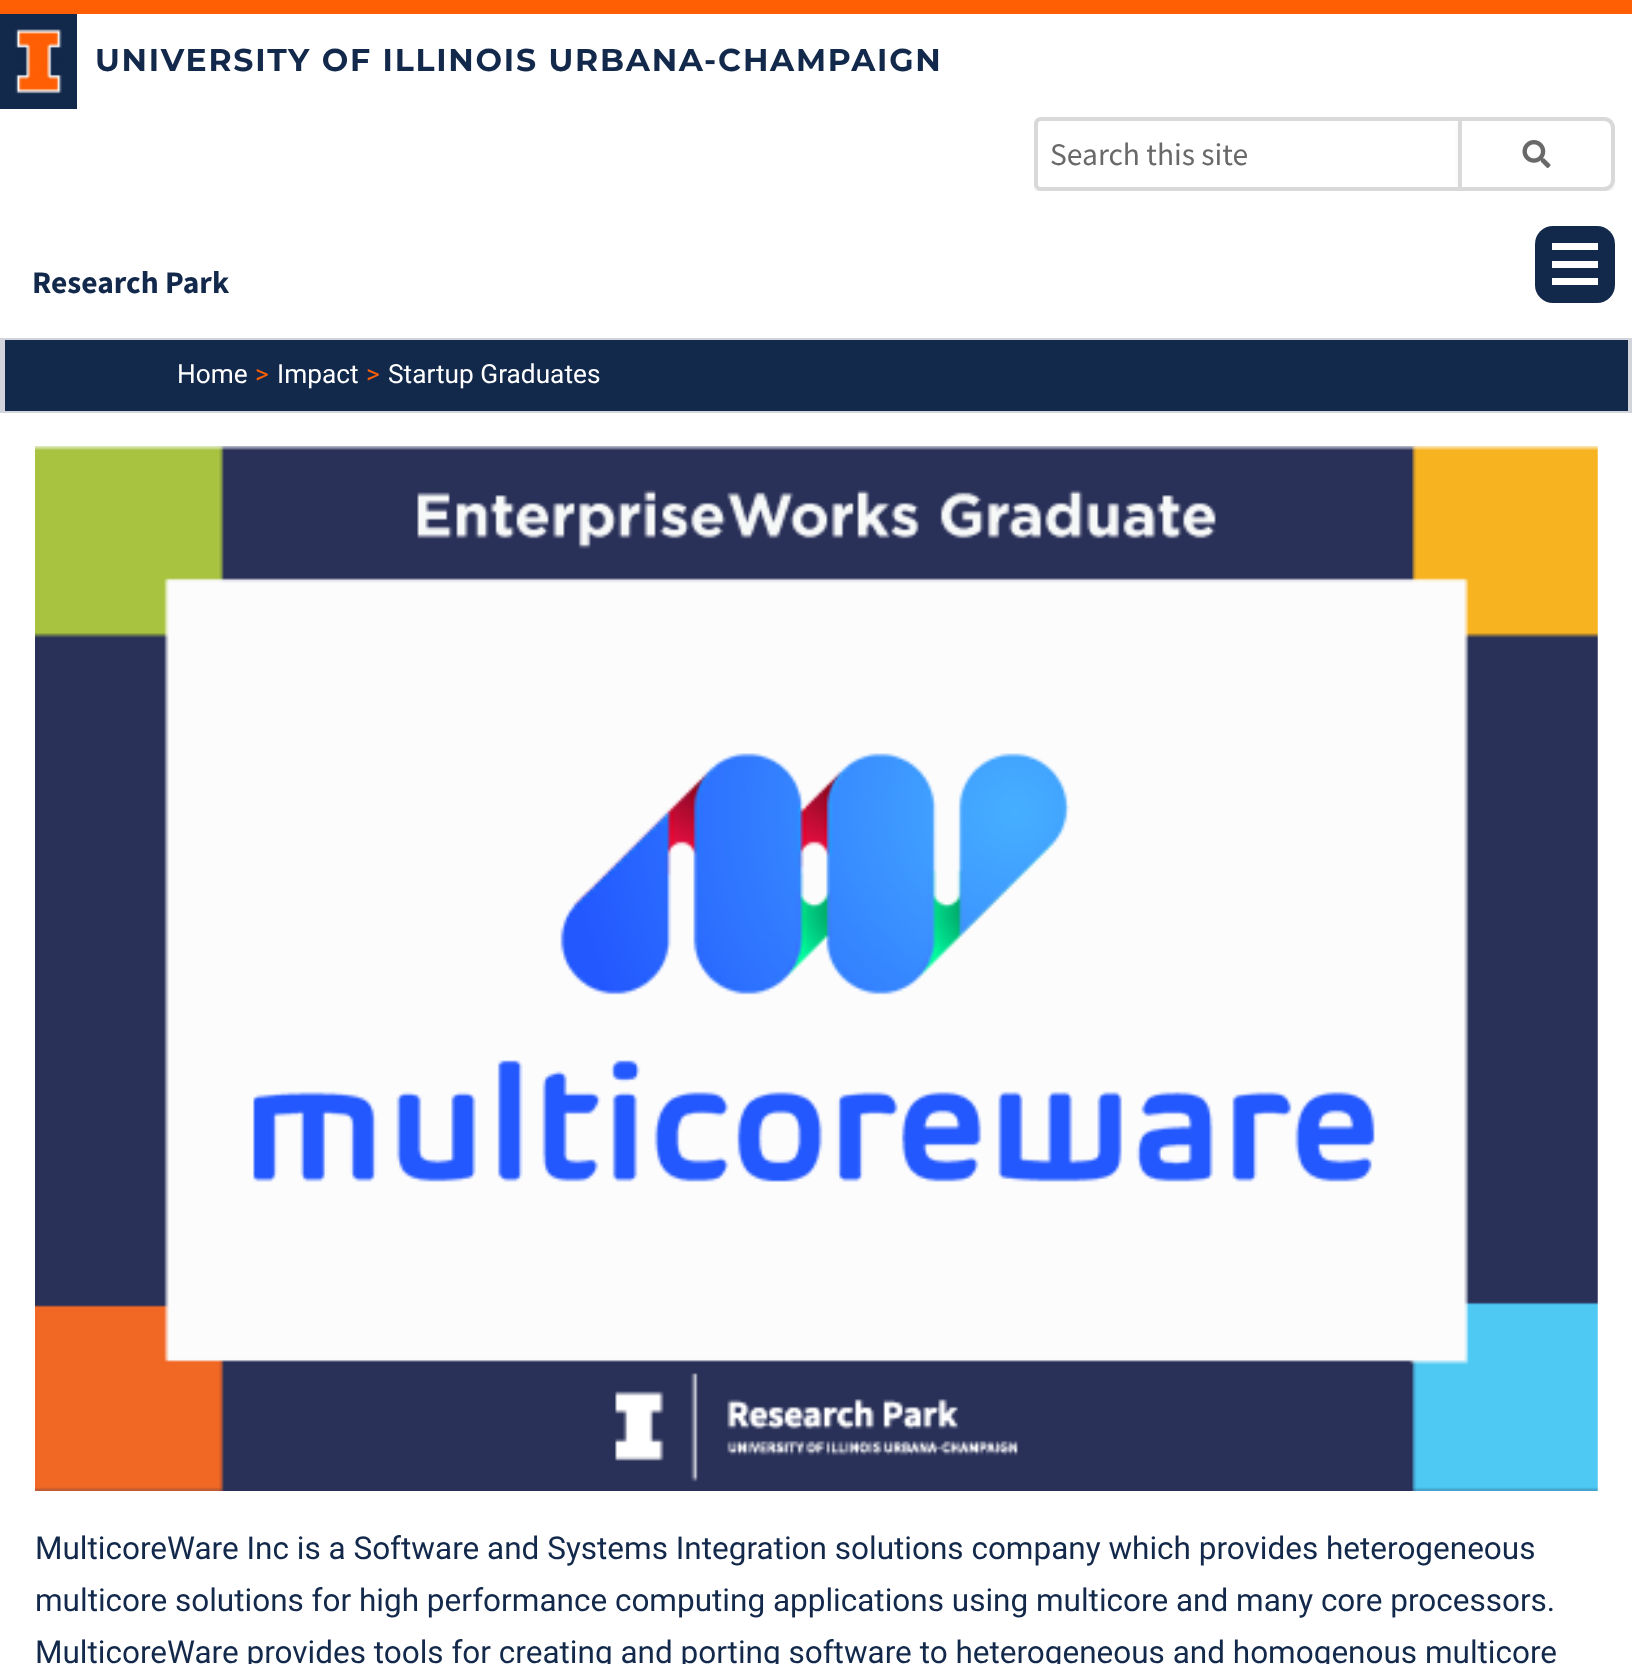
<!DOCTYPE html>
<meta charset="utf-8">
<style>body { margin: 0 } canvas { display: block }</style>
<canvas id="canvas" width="1632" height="1664"></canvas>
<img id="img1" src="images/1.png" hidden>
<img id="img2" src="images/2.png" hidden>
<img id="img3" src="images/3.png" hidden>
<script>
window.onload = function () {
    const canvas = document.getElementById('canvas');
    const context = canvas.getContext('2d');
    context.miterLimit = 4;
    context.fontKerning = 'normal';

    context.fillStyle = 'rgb(255, 255, 255)';
    context.fillRect(0, 0, 1632, 1664);
    context.fillStyle = 'rgb(254, 95, 5)';
    context.fillRect(0, 0, 1632, 14);
    context.fillStyle = 'rgb(19, 41, 75)';
    context.fillRect(0, 14, 77, 95);
    context.drawImage(document.getElementById('img1'), 15, 29, 47, 65);
    context.save();
    context.beginPath();
    context.rect(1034, 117, 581, 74);
    context.clip();
    context.fillStyle = 'rgba(0, 0, 0, 0.05)';
    context.filter = 'blur(2px)';
    context.beginPath();
    context.roundRect(1034, 119, 424, 74, 7);
    context.fill();
    context.filter = 'none';
    context.restore();
    context.fillStyle = 'rgb(255, 255, 255)';
    context.beginPath();
    context.roundRect(1034, 117, 424, 74, [7, 0, 0, 7]);
    context.fill();
    context.fillStyle = 'rgba(105, 105, 105, 0.25)';
    context.beginPath();
    context.moveTo(1041, 117);
    context.lineTo(1458, 117);
    context.lineTo(1458, 191);
    context.lineTo(1041, 191);
    context.bezierCurveTo(1037, 191, 1034, 188, 1034, 184);
    context.lineTo(1034, 124);
    context.bezierCurveTo(1034, 120, 1037, 117, 1041, 117);
    context.closePath();
    context.moveTo(1041, 121);
    context.lineTo(1458, 121);
    context.lineTo(1458, 187);
    context.lineTo(1041, 187);
    context.bezierCurveTo(1039, 187, 1038, 186, 1038, 184);
    context.lineTo(1038, 124);
    context.bezierCurveTo(1038, 122, 1039, 121, 1041, 121);
    context.closePath();
    context.fill('evenodd');
    context.save();
    context.beginPath();
    context.rect(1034, 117, 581, 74);
    context.clip();
    context.fillStyle = 'rgba(0, 0, 0, 0.05)';
    context.filter = 'blur(2px)';
    context.beginPath();
    context.roundRect(1458, 119, 157, 74, 11);
    context.fill();
    context.filter = 'none';
    context.restore();
    context.fillStyle = 'rgb(255, 255, 255)';
    context.beginPath();
    context.roundRect(1460, 119, 153, 70, [0, 9, 9, 0]);
    context.fill();
    context.strokeStyle = 'rgb(217, 217, 217)';
    context.lineWidth = 4;
    context.stroke();
    context.drawImage(document.getElementById('img2'), 1522, 140, 29, 28);
    context.fillStyle = 'rgb(19, 41, 75)';
    context.beginPath();
    context.roundRect(1535, 226, 80, 77, 18);
    context.fill();
    context.fillStyle = 'rgb(255, 255, 255)';
    context.fillRect(1552, 243, 46, 7);
    context.fillRect(1552, 261, 46, 7);
    context.fillRect(1552, 278, 46, 7);
    context.fillStyle = 'rgb(19, 41, 75)';
    context.fillRect(5, 340, 1623, 71);
    context.fillStyle = 'rgb(209, 213, 219)';
    context.fillRect(0, 338, 1632, 2);
    context.fillRect(1628, 338, 4, 75);
    context.fillRect(0, 411, 1632, 2);
    context.fillRect(0, 338, 5, 75);
    context.drawImage(document.getElementById('img3'), 35, 446, 1563, 1045);
    context.letterSpacing = '1.75px';
    context.font = 'bold 31.5px Montserrat';
    context.fillStyle = 'rgb(19, 41, 75)';
    context.fillText('UNIVERSITY OF ILLINOIS URBANA-CHAMPAIGN', 95, 71);
    context.letterSpacing = '0px';
    context.font = '31.5px Source Sans Pro';
    context.fillStyle = 'rgb(105, 105, 105)';
    context.fillText('Search this site', 1050, 165);
    context.font = 'bold 31.5px Source Sans Pro';
    context.fillStyle = 'rgb(19, 41, 75)';
    context.fillText('Research Park', 32, 293);
    context.font = '26.25px Roboto';
    context.fillStyle = 'rgb(255, 255, 255)';
    context.fillText('Home', 177, 383);
    context.fillStyle = 'rgb(255, 95, 5)';
    context.fillText('>', 255, 383);
    context.fillStyle = 'rgb(255, 255, 255)';
    context.fillText('Impact', 277, 383);
    context.fillStyle = 'rgb(255, 95, 5)';
    context.fillText('>', 366, 383);
    context.fillStyle = 'rgb(255, 255, 255)';
    context.fillText('Startup Graduates', 388, 383);
    context.font = '31.5px Roboto';
    context.fillStyle = 'rgb(19, 41, 75)';
    context.fillText('MulticoreWare Inc is a Software and Systems Integration solutions company which provides heterogeneous', 35, 1559);
    context.fillText('multicore solutions for high performance computing applications using multicore and many core processors.', 35, 1611);
    context.fillText('MulticoreWare provides tools for creating and porting software to heterogeneous and homogenous multicore', 35, 1663);
};
</script>
